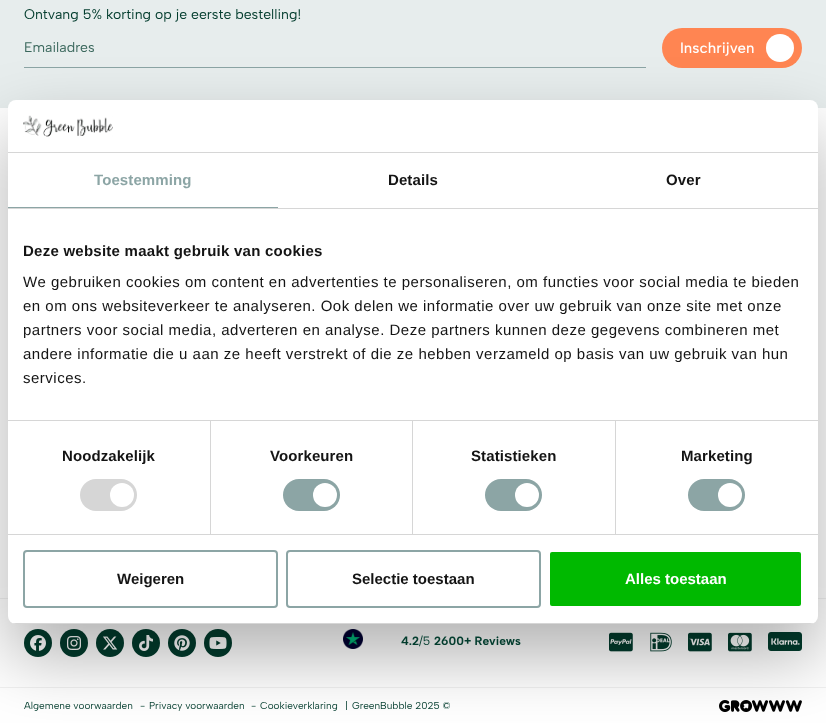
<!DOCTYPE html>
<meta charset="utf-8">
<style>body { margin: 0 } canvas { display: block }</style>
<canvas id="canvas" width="826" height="723"></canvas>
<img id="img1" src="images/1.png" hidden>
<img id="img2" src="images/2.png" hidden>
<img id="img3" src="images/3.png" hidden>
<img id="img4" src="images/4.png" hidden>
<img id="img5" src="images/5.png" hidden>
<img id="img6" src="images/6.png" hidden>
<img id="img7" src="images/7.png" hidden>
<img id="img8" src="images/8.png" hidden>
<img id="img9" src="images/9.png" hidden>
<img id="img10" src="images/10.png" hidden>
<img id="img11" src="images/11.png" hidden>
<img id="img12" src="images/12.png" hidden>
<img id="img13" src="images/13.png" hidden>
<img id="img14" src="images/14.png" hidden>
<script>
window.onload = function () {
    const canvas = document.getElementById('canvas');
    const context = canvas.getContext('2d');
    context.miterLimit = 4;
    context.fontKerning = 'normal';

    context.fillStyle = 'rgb(255, 255, 255)';
    context.fillRect(0, 0, 826, 723);
    context.fillStyle = 'rgb(231, 237, 237)';
    context.fillRect(0, 0, 826, 108);
    context.fillStyle = 'rgb(140, 165, 165)';
    context.fillRect(24, 67, 622, 1);
    context.fillStyle = 'rgb(255, 133, 82)';
    context.beginPath();
    context.roundRect(662, 28, 140, 40, 20);
    context.fill();
    context.fillStyle = 'rgb(255, 255, 255)';
    context.beginPath();
    context.arc(780, 48, 14, 0, 2 * Math.PI);
    context.fill();
    context.fillStyle = 'rgb(241, 241, 241)';
    context.fillRect(0, 598, 826, 1);
    context.fillStyle = 'rgb(2, 60, 45)';
    context.beginPath();
    context.arc(38, 643, 14, 0, 2 * Math.PI);
    context.fill();
    context.drawImage(document.getElementById('img1'), 30, 635, 16, 16);
    context.beginPath();
    context.arc(74, 643, 14, 0, 2 * Math.PI);
    context.fill();
    context.drawImage(document.getElementById('img2'), 67, 636, 14, 14);
    context.beginPath();
    context.arc(110, 643, 14, 0, 2 * Math.PI);
    context.fill();
    context.drawImage(document.getElementById('img3'), 103, 636, 15, 14);
    context.beginPath();
    context.arc(146, 643, 14, 0, 2 * Math.PI);
    context.fill();
    context.drawImage(document.getElementById('img4'), 139, 635, 14, 16);
    context.beginPath();
    context.arc(182, 643, 14, 0, 2 * Math.PI);
    context.fill();
    context.drawImage(document.getElementById('img5'), 174, 635, 16, 16);
    context.beginPath();
    context.arc(218, 643, 14, 0, 2 * Math.PI);
    context.fill();
    context.drawImage(document.getElementById('img6'), 209, 637, 18, 12);
    context.drawImage(document.getElementById('img7'), 343, 629, 20, 20);
    context.drawImage(document.getElementById('img8'), 609, 632, 24, 20);
    context.drawImage(document.getElementById('img9'), 650, 632, 22, 20);
    context.drawImage(document.getElementById('img10'), 688, 632, 24, 20);
    context.drawImage(document.getElementById('img11'), 728, 632, 24, 20);
    context.drawImage(document.getElementById('img12'), 768, 632, 34, 19);
    context.fillStyle = 'rgb(241, 241, 241)';
    context.fillRect(0, 687, 826, 1);
    context.drawImage(document.getElementById('img13'), 719, 700, 83, 12);
    context.fillStyle = 'rgba(0, 0, 0, 0.3)';
    context.filter = 'blur(34px)';
    context.beginPath();
    context.roundRect(8, 132, 810, 524, 8);
    context.fill();
    context.filter = 'none';
    context.fillStyle = 'rgb(255, 255, 255)';
    context.beginPath();
    context.roundRect(8, 100, 810, 524, 8);
    context.fill();
    context.fillStyle = 'rgb(214, 214, 214)';
    context.fillRect(8, 152, 810, 1);
    context.drawImage(document.getElementById('img14'), 23, 115, 90, 22);
    context.fillRect(8, 208, 810, 1);
    context.fillStyle = 'rgb(140, 165, 165)';
    context.fillRect(8, 207, 270, 1);
    context.fillStyle = 'rgb(214, 214, 214)';
    context.fillRect(8, 420, 810, 1);
    context.fillRect(8, 534, 810, 1);
    context.fillRect(210, 421, 1, 113);
    context.beginPath();
    context.roundRect(80, 479, 57, 32, 16);
    context.fill();
    context.fillStyle = 'rgb(255, 255, 255)';
    context.beginPath();
    context.arc(122, 495, 12, 0, 2 * Math.PI);
    context.fill();
    context.fillStyle = 'rgb(214, 214, 214)';
    context.fillRect(412, 421, 1, 113);
    context.fillStyle = 'rgb(140, 165, 165)';
    context.beginPath();
    context.roundRect(283, 479, 57, 32, 16);
    context.fill();
    context.fillStyle = 'rgb(255, 255, 255)';
    context.beginPath();
    context.arc(325, 495, 12, 0, 2 * Math.PI);
    context.fill();
    context.fillStyle = 'rgb(214, 214, 214)';
    context.fillRect(615, 421, 1, 113);
    context.fillStyle = 'rgb(140, 165, 165)';
    context.beginPath();
    context.roundRect(485, 479, 57, 32, 16);
    context.fill();
    context.fillStyle = 'rgb(255, 255, 255)';
    context.beginPath();
    context.arc(527, 495, 12, 0, 2 * Math.PI);
    context.fill();
    context.fillStyle = 'rgb(140, 165, 165)';
    context.beginPath();
    context.roundRect(688, 479, 57, 32, 16);
    context.fill();
    context.fillStyle = 'rgb(255, 255, 255)';
    context.beginPath();
    context.arc(730, 495, 12, 0, 2 * Math.PI);
    context.fill();
    context.save();
    context.beginPath();
    context.roundRect(8, 100, 810, 524, 8);
    context.clip();
    context.fillStyle = 'rgb(214, 214, 214)';
    context.fillRect(8, 623, 810, 1);
    context.restore();
    context.beginPath();
    context.roundRect(24, 551, 253, 56, 3);
    context.strokeStyle = 'rgb(140, 165, 165)';
    context.lineWidth = 2;
    context.stroke();
    context.beginPath();
    context.roundRect(287, 551, 253, 56, 3);
    context.stroke();
    context.fillStyle = 'rgb(0, 185, 0)';
    context.beginPath();
    context.roundRect(549, 551, 253, 56, 3);
    context.fill();
    context.strokeStyle = 'rgb(255, 255, 255)';
    context.stroke();
    context.font = '14px Albert Sans';
    context.fillStyle = 'rgb(2, 60, 45)';
    context.fillText('Ontvang 5% korting op je eerste bestelling!', 24, 19);
    context.fillStyle = 'rgb(59, 104, 93)';
    context.fillText('Emailadres', 24, 52);
    context.font = '500 15px Albert Sans';
    context.fillStyle = 'rgb(255, 255, 255)';
    context.fillText('Inschrijven', 680, 53);
    context.font = 'bold 12px Albert Sans';
    context.fillStyle = 'rgb(2, 60, 45)';
    context.fillText('4.2', 401, 645);
    context.font = '12px Albert Sans';
    context.fillText('/5', 419, 645);
    context.font = 'bold 12px Albert Sans';
    context.fillText('2600+ Reviews', 434, 645);
    context.font = '10px Albert Sans';
    context.fillText('Algemene voorwaarden', 24, 709);
    context.fillText('-', 140, 709);
    context.fillText('Privacy voorwaarden', 149, 709);
    context.fillText('-', 251, 709);
    context.fillText('Cookieverklaring', 260, 709);
    context.fillText('|', 345, 709);
    context.fillText('GreenBubble 2025 ©', 352, 709);
    context.letterSpacing = '0.1px';
    context.font = 'bold 15px Liberation Sans';
    context.fillStyle = 'rgb(140, 165, 165)';
    context.fillText('Toestemming', 94, 185);
    context.fillStyle = 'rgb(20, 20, 20)';
    context.fillText('Details', 388, 185);
    context.fillText('Over', 666, 185);
    context.letterSpacing = '0.25px';
    context.fillText('Deze website maakt gebruik van cookies', 23, 256);
    context.letterSpacing = '0.5px';
    context.font = '15px Liberation Sans';
    context.fillText('We gebruiken cookies om content en advertenties te personaliseren, om functies voor social media te bieden', 23, 287);
    context.fillText('en om ons websiteverkeer te analyseren. Ook delen we informatie over uw gebruik van onze site met onze', 23, 311);
    context.fillText('partners voor social media, adverteren en analyse. Deze partners kunnen deze gegevens combineren met', 23, 335);
    context.fillText('andere informatie die u aan ze heeft verstrekt of die ze hebben verzameld op basis van uw gebruik van hun', 23, 359);
    context.fillText('services.', 23, 383);
    context.letterSpacing = '0.1px';
    context.font = 'bold 15px Liberation Sans';
    context.fillText('Noodzakelijk', 62, 461);
    context.fillText('Voorkeuren', 270, 461);
    context.fillText('Statistieken', 471, 461);
    context.fillText('Marketing', 681, 461);
    context.letterSpacing = '0px';
    context.fillText('Weigeren', 117, 584);
    context.fillText('Selectie toestaan', 352, 584);
    context.fillStyle = 'rgb(255, 255, 255)';
    context.fillText('Alles toestaan', 625, 584);
};
</script>
